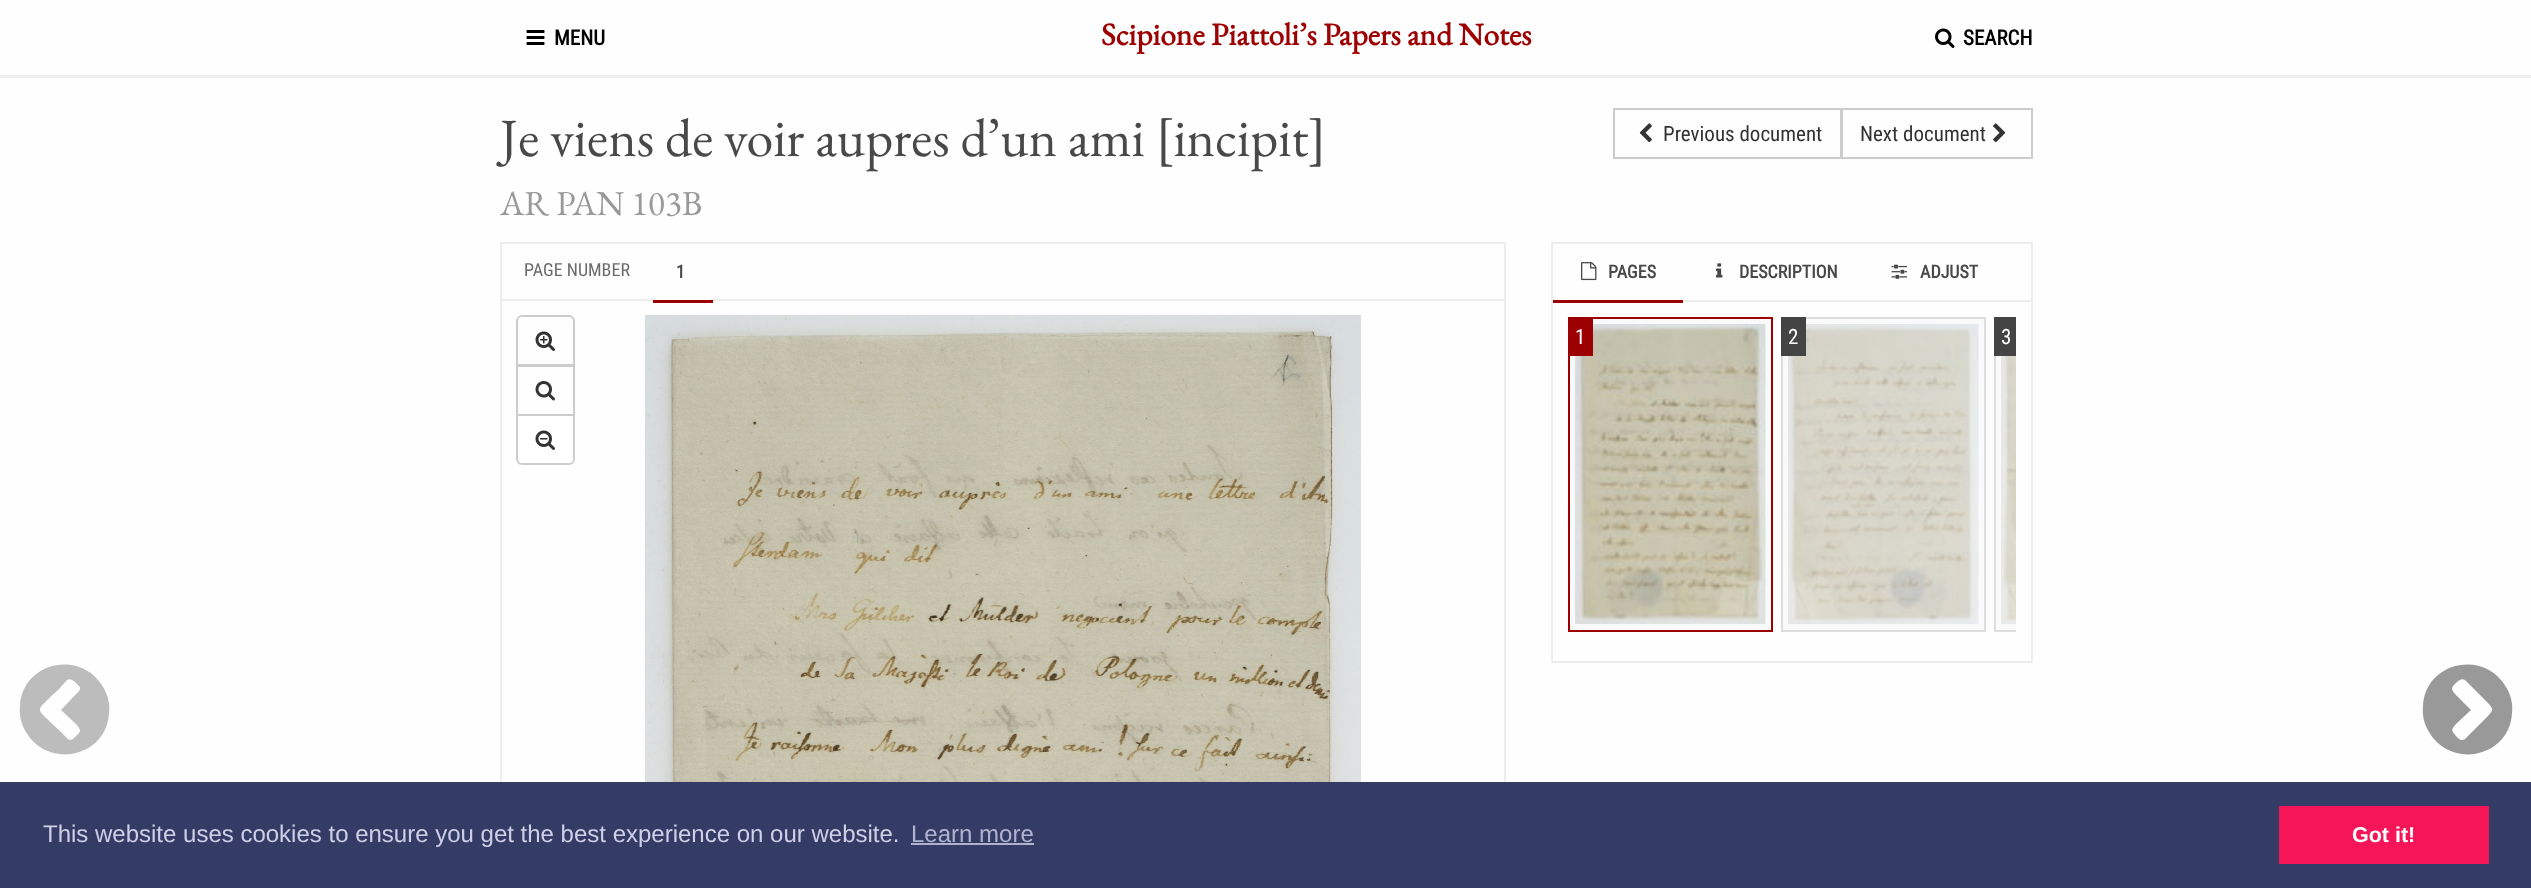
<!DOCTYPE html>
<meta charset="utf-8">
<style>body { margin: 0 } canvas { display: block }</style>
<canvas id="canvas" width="2531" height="888"></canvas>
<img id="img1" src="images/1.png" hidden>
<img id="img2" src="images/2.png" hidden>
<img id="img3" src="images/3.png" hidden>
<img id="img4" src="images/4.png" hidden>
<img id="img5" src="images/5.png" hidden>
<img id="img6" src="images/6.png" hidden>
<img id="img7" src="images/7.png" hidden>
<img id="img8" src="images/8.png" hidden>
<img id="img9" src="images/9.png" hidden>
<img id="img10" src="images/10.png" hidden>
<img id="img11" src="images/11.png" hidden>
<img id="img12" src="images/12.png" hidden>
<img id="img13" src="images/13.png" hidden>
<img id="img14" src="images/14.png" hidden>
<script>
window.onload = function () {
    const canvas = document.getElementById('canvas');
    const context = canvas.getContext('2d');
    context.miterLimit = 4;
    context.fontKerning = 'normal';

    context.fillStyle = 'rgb(254, 254, 254)';
    context.fillRect(0, 0, 2531, 888);
    context.fillStyle = 'rgb(237, 237, 237)';
    context.fillRect(0, 75, 2531, 3);
    context.drawImage(document.getElementById('img1'), 526, 30, 19, 15);
    context.drawImage(document.getElementById('img2'), 1935, 28, 20, 20);
    context.strokeStyle = 'rgb(204, 204, 204)';
    context.lineWidth = 2;
    context.strokeRect(1614, 109, 227, 49);
    context.drawImage(document.getElementById('img3'), 1639, 123, 13, 20);
    context.strokeRect(1842, 109, 190, 49);
    context.drawImage(document.getElementById('img4'), 1993, 123, 13, 20);
    context.strokeStyle = 'rgb(237, 237, 237)';
    context.strokeRect(501, 243, 1004, 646);
    context.fillRect(501, 299, 1004, 2);
    context.fillStyle = 'rgb(255, 255, 255)';
    context.fillRect(653, 299, 57, 1);
    context.fillStyle = 'rgb(156, 0, 0)';
    context.fillRect(653, 300, 60, 3);
    context.beginPath();
    context.roundRect(517, 316, 57, 49, [5, 5, 0, 0]);
    context.strokeStyle = 'rgb(204, 204, 204)';
    context.stroke();
    context.drawImage(document.getElementById('img5'), 535, 331, 20, 20);
    context.strokeRect(517, 366, 57, 49);
    context.drawImage(document.getElementById('img6'), 535, 381, 20, 20);
    context.fillStyle = 'rgb(255, 255, 255)';
    context.beginPath();
    context.roundRect(517, 415, 57, 49, [0, 0, 5, 5]);
    context.fill();
    context.stroke();
    context.drawImage(document.getElementById('img7'), 535, 430, 20, 20);
    context.drawImage(document.getElementById('img8'), 645, 315, 716, 467);
    context.strokeStyle = 'rgb(237, 237, 237)';
    context.strokeRect(1552, 243, 480, 419);
    context.fillStyle = 'rgb(237, 237, 237)';
    context.fillRect(1683, 300, 348, 2);
    context.drawImage(document.getElementById('img9'), 1581, 262, 16, 19);
    context.fillStyle = 'rgb(156, 0, 0)';
    context.fillRect(1553, 300, 130, 3);
    context.drawImage(document.getElementById('img10'), 1716, 263, 7, 15);
    context.drawImage(document.getElementById('img11'), 1891, 264, 16, 15);
    context.fillStyle = 'rgb(250, 250, 250)';
    context.beginPath();
    context.rect(1569, 318, 203, 313);
    context.fill();
    context.strokeStyle = 'rgb(156, 0, 0)';
    context.stroke();
    context.drawImage(document.getElementById('img12'), 1575, 324, 191, 300);
    context.fillStyle = 'rgb(156, 0, 0)';
    context.fillRect(1570, 319, 23, 37);
    context.fillStyle = 'rgb(250, 250, 250)';
    context.beginPath();
    context.rect(1782, 318, 203, 313);
    context.fill();
    context.strokeStyle = 'rgb(221, 221, 221)';
    context.stroke();
    context.drawImage(document.getElementById('img13'), 1788, 324, 191, 300);
    context.fillStyle = 'rgb(68, 68, 68)';
    context.fillRect(1781, 317, 25, 39);
    context.fillStyle = 'rgb(250, 250, 250)';
    context.fillRect(1996, 356, 20, 274);
    context.save();
    context.beginPath();
    context.rect(1568, 317, 448, 315);
    context.clip();
    context.strokeRect(1995, 318, 202, 313);
    context.restore();
    context.drawImage(document.getElementById('img14'), 2001, 356, 15, 268);
    context.fillStyle = 'rgb(68, 68, 68)';
    context.fillRect(1994, 317, 22, 39);
    context.fillStyle = 'rgb(188, 188, 188)';
    context.beginPath();
    context.moveTo(73, 739);
    context.bezierCurveTo(80, 732, 83, 732, 76, 724);
    context.lineTo(61, 710);
    context.lineTo(79, 691);
    context.bezierCurveTo(80, 690, 80, 689, 80, 687);
    context.lineTo(75, 682);
    context.bezierCurveTo(73, 680, 70, 678, 67, 680);
    context.lineTo(59, 689);
    context.bezierCurveTo(56, 692, 40, 706, 40, 709);
    context.bezierCurveTo(39, 712, 44, 715, 45, 717);
    context.lineTo(63, 734);
    context.bezierCurveTo(65, 736, 69, 742, 73, 739);
    context.closePath();
    context.moveTo(103, 687);
    context.bezierCurveTo(108, 695, 110, 704, 109, 713);
    context.bezierCurveTo(107, 757, 48, 770, 26, 732);
    context.bezierCurveTo(21, 724, 19, 715, 20, 706);
    context.bezierCurveTo(22, 662, 81, 649, 103, 687);
    context.closePath();
    context.fill();
    context.fillStyle = 'rgb(153, 153, 153)';
    context.beginPath();
    context.moveTo(2465, 739);
    context.lineTo(2487, 717);
    context.bezierCurveTo(2494, 709, 2494, 710, 2487, 702);
    context.lineTo(2465, 680);
    context.bezierCurveTo(2462, 678, 2459, 680, 2457, 682);
    context.bezierCurveTo(2451, 688, 2450, 688, 2456, 695);
    context.lineTo(2471, 710);
    context.lineTo(2456, 724);
    context.bezierCurveTo(2451, 730, 2451, 730, 2456, 736);
    context.bezierCurveTo(2458, 738, 2461, 742, 2465, 739);
    context.closePath();
    context.moveTo(2506, 687);
    context.bezierCurveTo(2511, 695, 2513, 704, 2512, 713);
    context.bezierCurveTo(2510, 757, 2451, 770, 2429, 732);
    context.bezierCurveTo(2424, 724, 2422, 715, 2423, 706);
    context.bezierCurveTo(2425, 662, 2484, 649, 2506, 687);
    context.closePath();
    context.fill();
    context.fillStyle = 'rgb(52, 60, 102)';
    context.fillRect(0, 782, 2531, 106);
    context.fillStyle = 'rgb(176, 178, 206)';
    context.fillRect(911, 843, 123, 2);
    context.fillStyle = 'rgb(247, 21, 89)';
    context.fillRect(2279, 806, 210, 58);
    context.font = 'bold 21px Roboto Condensed';
    context.fillStyle = 'rgb(0, 0, 0)';
    context.fillText('MENU', 554, 45);
    context.font = 'bold 31.5px EB Garamond';
    context.fillStyle = 'rgb(156, 0, 0)';
    context.fillText('Scipione Piattoli’s Papers and Notes', 1101, 45);
    context.font = 'bold 21px Roboto Condensed';
    context.fillStyle = 'rgb(0, 0, 0)';
    context.fillText('SEARCH', 1963, 45);
    context.font = '54px EB Garamond';
    context.fillStyle = 'rgb(73, 73, 73)';
    context.fillText('Je viens de voir aupres d’un ami [incipit]', 500, 156);
    context.font = '35px EB Garamond';
    context.fillStyle = 'rgb(153, 153, 153)';
    context.fillText('AR PAN 103B', 500, 215);
    context.font = '21px Roboto Condensed';
    context.fillStyle = 'rgb(51, 51, 51)';
    context.fillText('Previous document', 1663, 141);
    context.fillText('Next document', 1860, 141);
    context.font = '18px Roboto Condensed';
    context.fillStyle = 'rgb(106, 106, 106)';
    context.fillText('PAGE NUMBER', 524, 276);
    context.font = 'bold 18px Roboto Condensed';
    context.fillStyle = 'rgb(73, 73, 73)';
    context.fillText('1', 676, 278);
    context.fillText('PAGES', 1608, 278);
    context.fillText('DESCRIPTION', 1739, 278);
    context.fillText('ADJUST', 1920, 278);
    context.font = '21px Roboto Condensed';
    context.fillStyle = 'rgb(255, 255, 255)';
    context.fillText('1', 1575, 344);
    context.fillText('2', 1788, 344);
    context.fillText('3', 2001, 344);
    context.font = '24px Liberation Sans';
    context.fillStyle = 'rgb(207, 207, 232)';
    context.fillText('This website uses cookies to ensure you get the best experience on our website.', 43, 842);
    context.fillStyle = 'rgb(176, 178, 206)';
    context.fillText('Learn more', 911, 842);
    context.font = 'bold 21.5px Liberation Sans';
    context.fillStyle = 'rgb(255, 255, 255)';
    context.fillText('Got it!', 2352, 842);
};
</script>
